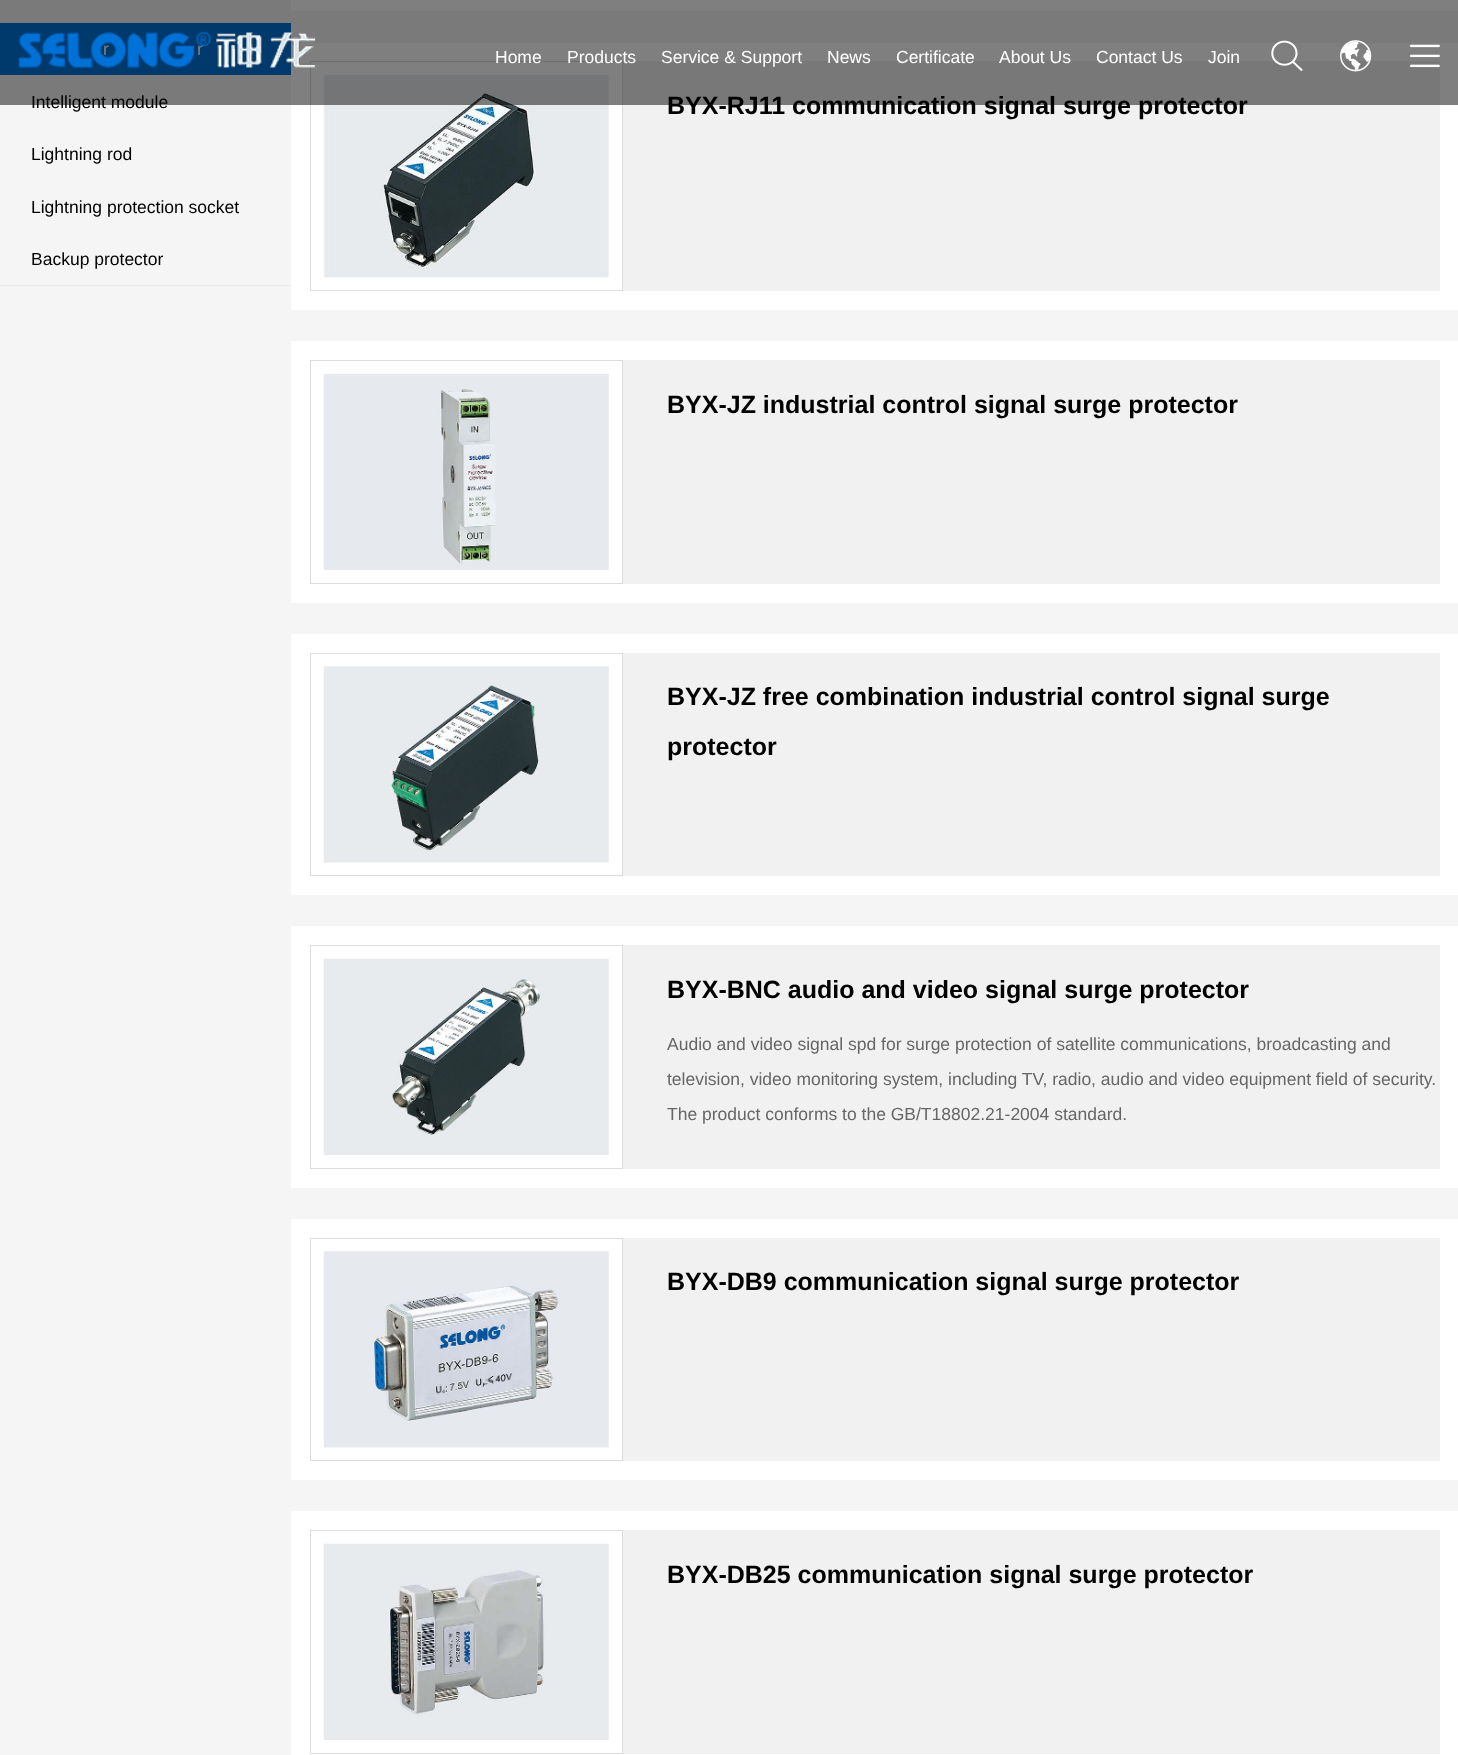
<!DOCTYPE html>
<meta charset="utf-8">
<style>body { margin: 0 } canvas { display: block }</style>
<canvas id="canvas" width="1458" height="1755"></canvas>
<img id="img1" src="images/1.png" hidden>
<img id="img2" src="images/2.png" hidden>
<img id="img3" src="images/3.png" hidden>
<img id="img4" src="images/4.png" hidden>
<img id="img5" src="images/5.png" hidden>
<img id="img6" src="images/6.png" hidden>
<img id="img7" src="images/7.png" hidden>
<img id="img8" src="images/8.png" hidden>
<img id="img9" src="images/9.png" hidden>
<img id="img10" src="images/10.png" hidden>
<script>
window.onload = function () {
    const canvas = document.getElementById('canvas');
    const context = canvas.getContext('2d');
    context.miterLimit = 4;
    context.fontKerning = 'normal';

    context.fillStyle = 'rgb(245, 245, 245)';
    context.fillRect(0, 0, 1458, 1755);
    context.fillStyle = 'rgb(234, 234, 234)';
    context.fillRect(0, 285, 291, 1);
    context.fillStyle = 'rgb(0, 114, 215)';
    context.fillRect(0, 23, 291, 52);
    context.fillStyle = 'rgb(255, 255, 255)';
    context.fillRect(291, 0, 1167, 11);
    context.fillRect(291, 43, 1167, 267);
    context.fillStyle = 'rgb(241, 241, 241)';
    context.fillRect(623, 61, 817, 230);
    context.strokeStyle = 'rgb(221, 221, 221)';
    context.strokeRect(310.5, 61.5, 312, 229);
    context.drawImage(document.getElementById('img1'), 323, 75, 286, 203);
    context.fillStyle = 'rgb(255, 255, 255)';
    context.fillRect(291, 341, 1167, 262);
    context.fillStyle = 'rgb(241, 241, 241)';
    context.fillRect(623, 360, 817, 224);
    context.strokeRect(310.5, 360.5, 312, 223);
    context.drawImage(document.getElementById('img2'), 323, 373, 286, 197);
    context.fillStyle = 'rgb(255, 255, 255)';
    context.fillRect(291, 634, 1167, 261);
    context.fillStyle = 'rgb(241, 241, 241)';
    context.fillRect(623, 653, 817, 223);
    context.strokeRect(310.5, 653.5, 312, 222);
    context.drawImage(document.getElementById('img3'), 323, 666, 286, 197);
    context.fillStyle = 'rgb(255, 255, 255)';
    context.fillRect(291, 926, 1167, 262);
    context.fillStyle = 'rgb(241, 241, 241)';
    context.fillRect(623, 945, 817, 224);
    context.strokeRect(310.5, 945.5, 312, 223);
    context.drawImage(document.getElementById('img4'), 323, 958, 286, 197);
    context.fillStyle = 'rgb(255, 255, 255)';
    context.fillRect(291, 1219, 1167, 261);
    context.fillStyle = 'rgb(241, 241, 241)';
    context.fillRect(623, 1238, 817, 223);
    context.strokeRect(310.5, 1238.5, 312, 222);
    context.drawImage(document.getElementById('img5'), 323, 1251, 286, 197);
    context.fillStyle = 'rgb(255, 255, 255)';
    context.fillRect(291, 1511, 1167, 244);
    context.fillStyle = 'rgb(241, 241, 241)';
    context.fillRect(623, 1530, 817, 224);
    context.strokeRect(310.5, 1530.5, 312, 223);
    context.drawImage(document.getElementById('img6'), 323, 1543, 286, 197);
    context.font = '17.5px Liberation Sans';
    context.fillStyle = 'rgb(255, 255, 255)';
    context.fillText('r', 103, 55);
    context.fillText('r', 197, 55);
    context.fillStyle = 'rgb(0, 0, 0)';
    context.fillText('Intelligent module', 31, 108);
    context.fillText('Lightning rod', 31, 160);
    context.fillText('Lightning protection socket', 31, 213);
    context.fillText('Backup protector', 31, 265);
    context.font = 'bold 25px Liberation Sans';
    context.fillText('BYX-RJ11 communication signal surge protector', 667, 114);
    context.fillText('BYX-JZ industrial control signal surge protector', 667, 413);
    context.fillText('BYX-JZ free combination industrial control signal surge', 667, 705);
    context.fillText('protector', 667, 755);
    context.fillText('BYX-BNC audio and video signal surge protector', 667, 998);
    context.font = '17.5px Liberation Sans';
    context.fillStyle = 'rgb(102, 102, 102)';
    context.fillText('Audio and video signal spd for surge protection of satellite communications, broadcasting and', 667, 1050);
    context.fillText('television, video monitoring system, including TV, radio, audio and video equipment field of security.', 667, 1085);
    context.fillText('The product conforms to the GB/T18802.21-2004 standard.', 667, 1120);
    context.font = 'bold 25px Liberation Sans';
    context.fillStyle = 'rgb(0, 0, 0)';
    context.fillText('BYX-DB9 communication signal surge protector', 667, 1290);
    context.fillText('BYX-DB25 communication signal surge protector', 667, 1583);
    context.fillStyle = 'rgba(0, 0, 0, 0.5)';
    context.fillRect(0, 0, 1458, 105);
    context.drawImage(document.getElementById('img7'), 18, 31, 298, 37);
    context.font = '17.5px Liberation Sans';
    context.fillStyle = 'rgb(255, 255, 255)';
    context.fillText('Home', 495, 63);
    context.fillText('Products', 567, 63);
    context.fillText('Service & Support', 661, 63);
    context.fillText('News', 827, 63);
    context.fillText('Certificate', 896, 63);
    context.fillText('About Us', 999, 63);
    context.fillText('Contact Us', 1096, 63);
    context.fillText('Join', 1208, 63);
    context.drawImage(document.getElementById('img8'), 1271, 40, 32, 31);
    context.drawImage(document.getElementById('img9'), 1340, 40, 32, 32);
    context.drawImage(document.getElementById('img10'), 1409, 44, 31, 24);
};
</script>
